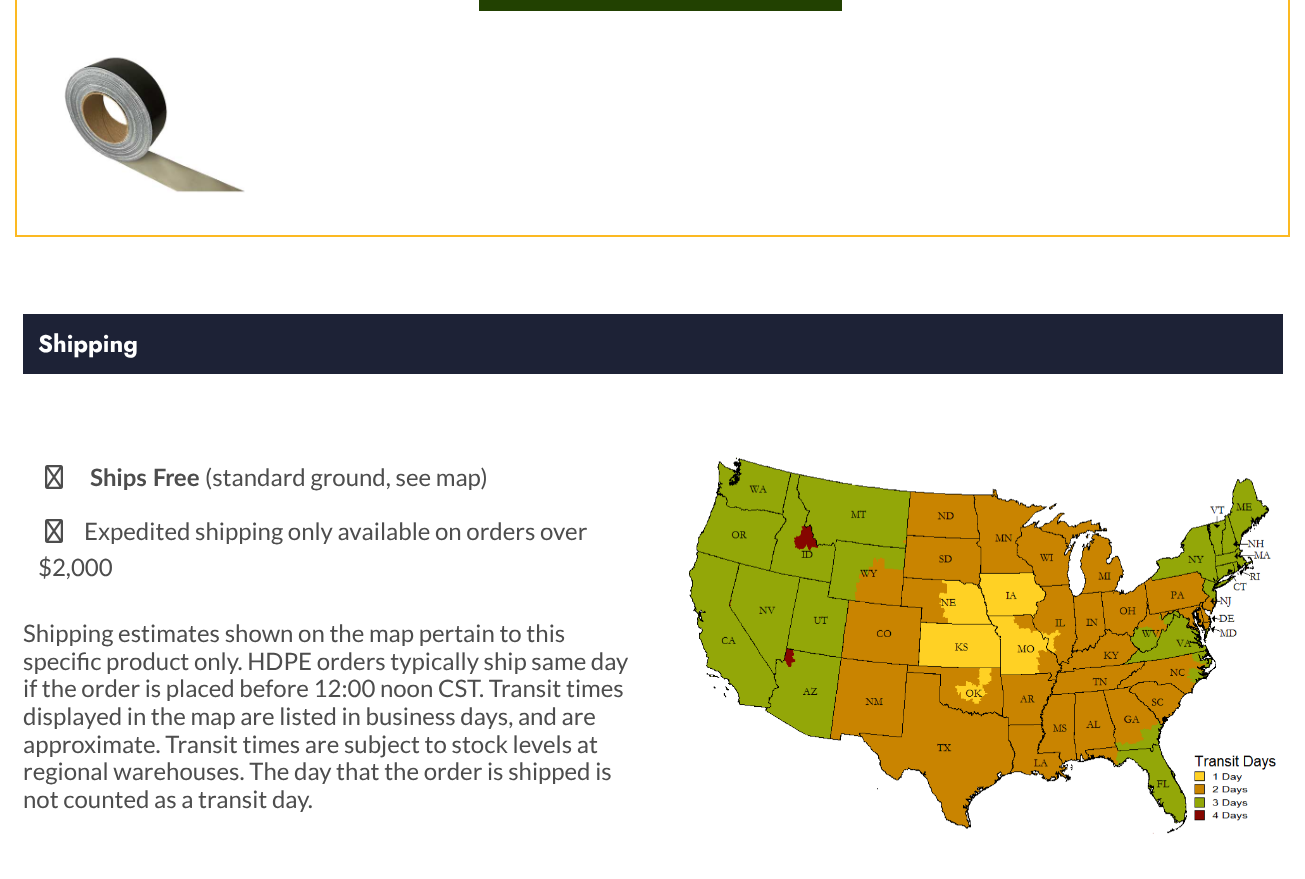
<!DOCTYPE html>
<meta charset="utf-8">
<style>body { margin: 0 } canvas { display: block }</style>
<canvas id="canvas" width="1305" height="879"></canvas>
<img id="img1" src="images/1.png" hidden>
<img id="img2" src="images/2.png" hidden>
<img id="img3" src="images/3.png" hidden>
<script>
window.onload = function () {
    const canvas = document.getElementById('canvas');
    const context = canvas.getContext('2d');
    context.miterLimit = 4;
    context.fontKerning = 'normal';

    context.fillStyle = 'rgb(255, 255, 255)';
    context.fillRect(0, 0, 1305, 879);
    context.strokeStyle = 'rgb(252, 185, 34)';
    context.lineWidth = 2;
    context.strokeRect(16, -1, 1273, 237);
    context.fillStyle = 'rgb(34, 65, 1)';
    context.fillRect(479, 0, 363, 11);
    context.drawImage(document.getElementById('img1'), 64, 57, 181, 136);
    context.fillStyle = 'rgb(29, 34, 54)';
    context.fillRect(23, 314, 1260, 60);
    context.drawImage(document.getElementById('img2'), 45, 465, 18, 24);
    context.drawImage(document.getElementById('img2'), 45, 519, 18, 24);
    context.drawImage(document.getElementById('img3'), 689, 457, 587, 377);
    context.font = 'bold 24px Jost';
    context.fillStyle = 'rgb(255, 255, 255)';
    context.fillText('Shipping', 38, 352);
    context.font = 'bold 24px Lato';
    context.fillStyle = 'rgb(77, 77, 77)';
    context.fillText('Ships Free', 90, 486);
    context.font = '24px Lato';
    context.fillText('(standard ground, see map)', 205, 486);
    context.fillText('Expedited shipping only available on orders over', 84, 540);
    context.fillText('$2,000', 38, 576);
    context.fillText('Shipping estimates shown on the map pertain to this', 23, 642);
    context.fillText('specific product only. HDPE orders typically ship same day', 23, 670);
    context.fillText('if the order is placed before 12:00 noon CST. Transit times', 23, 697);
    context.fillText('displayed in the map are listed in business days, and are', 23, 725);
    context.fillText('approximate. Transit times are subject to stock levels at', 23, 753);
    context.fillText('regional warehouses. The day that the order is shipped is', 23, 780);
    context.fillText('not counted as a transit day.', 23, 808);
};
</script>
